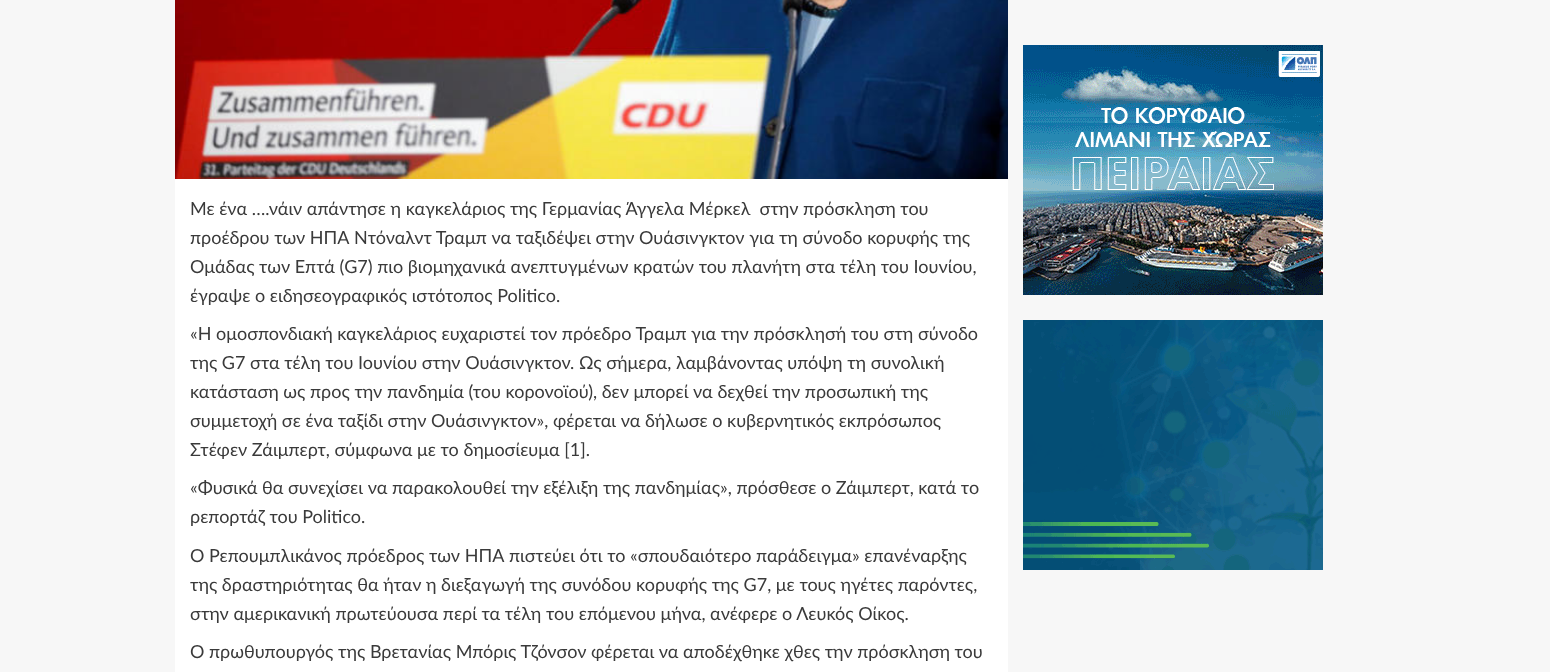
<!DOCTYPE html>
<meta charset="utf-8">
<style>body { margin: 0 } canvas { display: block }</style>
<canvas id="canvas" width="1550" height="672"></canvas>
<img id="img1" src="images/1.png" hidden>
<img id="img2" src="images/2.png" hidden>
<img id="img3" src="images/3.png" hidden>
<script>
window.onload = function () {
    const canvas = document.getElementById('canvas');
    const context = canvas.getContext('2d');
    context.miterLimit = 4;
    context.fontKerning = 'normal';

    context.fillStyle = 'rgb(247, 247, 247)';
    context.fillRect(0, 0, 1550, 672);
    context.fillStyle = 'rgb(255, 255, 255)';
    context.fillRect(175, 179, 833, 493);
    context.drawImage(document.getElementById('img1'), 175, 0, 833, 179);
    context.drawImage(document.getElementById('img2'), 1023, 45, 300, 250);
    context.drawImage(document.getElementById('img3'), 1023, 320, 300, 250);
    context.font = '18px Lato';
    context.fillStyle = 'rgb(58, 58, 58)';
    context.fillText('Με ένα ….νάιν απάντησε η καγκελάριος της Γερμανίας Άγγελα Μέρκελ  στην πρόσκληση του', 190, 215);
    context.fillText('προέδρου των ΗΠΑ Ντόναλντ Τραμπ να ταξιδέψει στην Ουάσινγκτον για τη σύνοδο κορυφής της', 190, 244);
    context.fillText('Ομάδας των Επτά (G7) πιο βιομηχανικά ανεπτυγμένων κρατών του πλανήτη στα τέλη του Ιουνίου,', 190, 273);
    context.fillText('έγραψε ο ειδησεογραφικός ιστότοπος Politico.', 190, 302);
    context.fillText('«Η ομοσπονδιακή καγκελάριος ευχαριστεί τον πρόεδρο Τραμπ για την πρόσκλησή του στη σύνοδο', 190, 340);
    context.fillText('της G7 στα τέλη του Ιουνίου στην Ουάσινγκτον. Ως σήμερα, λαμβάνοντας υπόψη τη συνολική', 190, 369);
    context.fillText('κατάσταση ως προς την πανδημία (του κορονοϊού), δεν μπορεί να δεχθεί την προσωπική της', 190, 398);
    context.fillText('συμμετοχή σε ένα ταξίδι στην Ουάσινγκτον», φέρεται να δήλωσε ο κυβερνητικός εκπρόσωπος', 190, 427);
    context.fillText('Στέφεν Ζάιμπερτ, σύμφωνα με το δημοσίευμα [1].', 190, 456);
    context.fillText('«Φυσικά θα συνεχίσει να παρακολουθεί την εξέλιξη της πανδημίας», πρόσθεσε ο Ζάιμπερτ, κατά το', 190, 494);
    context.fillText('ρεπορτάζ του Politico.', 190, 523);
    context.fillText('Ο Ρεπουμπλικάνος πρόεδρος των ΗΠΑ πιστεύει ότι το «σπουδαιότερο παράδειγμα» επανέναρξης', 190, 562);
    context.fillText('της δραστηριότητας θα ήταν η διεξαγωγή της συνόδου κορυφής της G7, με τους ηγέτες παρόντες,', 190, 591);
    context.fillText('στην αμερικανική πρωτεύουσα περί τα τέλη του επόμενου μήνα, ανέφερε ο Λευκός Οίκος.', 190, 620);
    context.fillText('Ο πρωθυπουργός της Βρετανίας Μπόρις Τζόνσον φέρεται να αποδέχθηκε χθες την πρόσκληση του', 190, 658);
};
</script>
